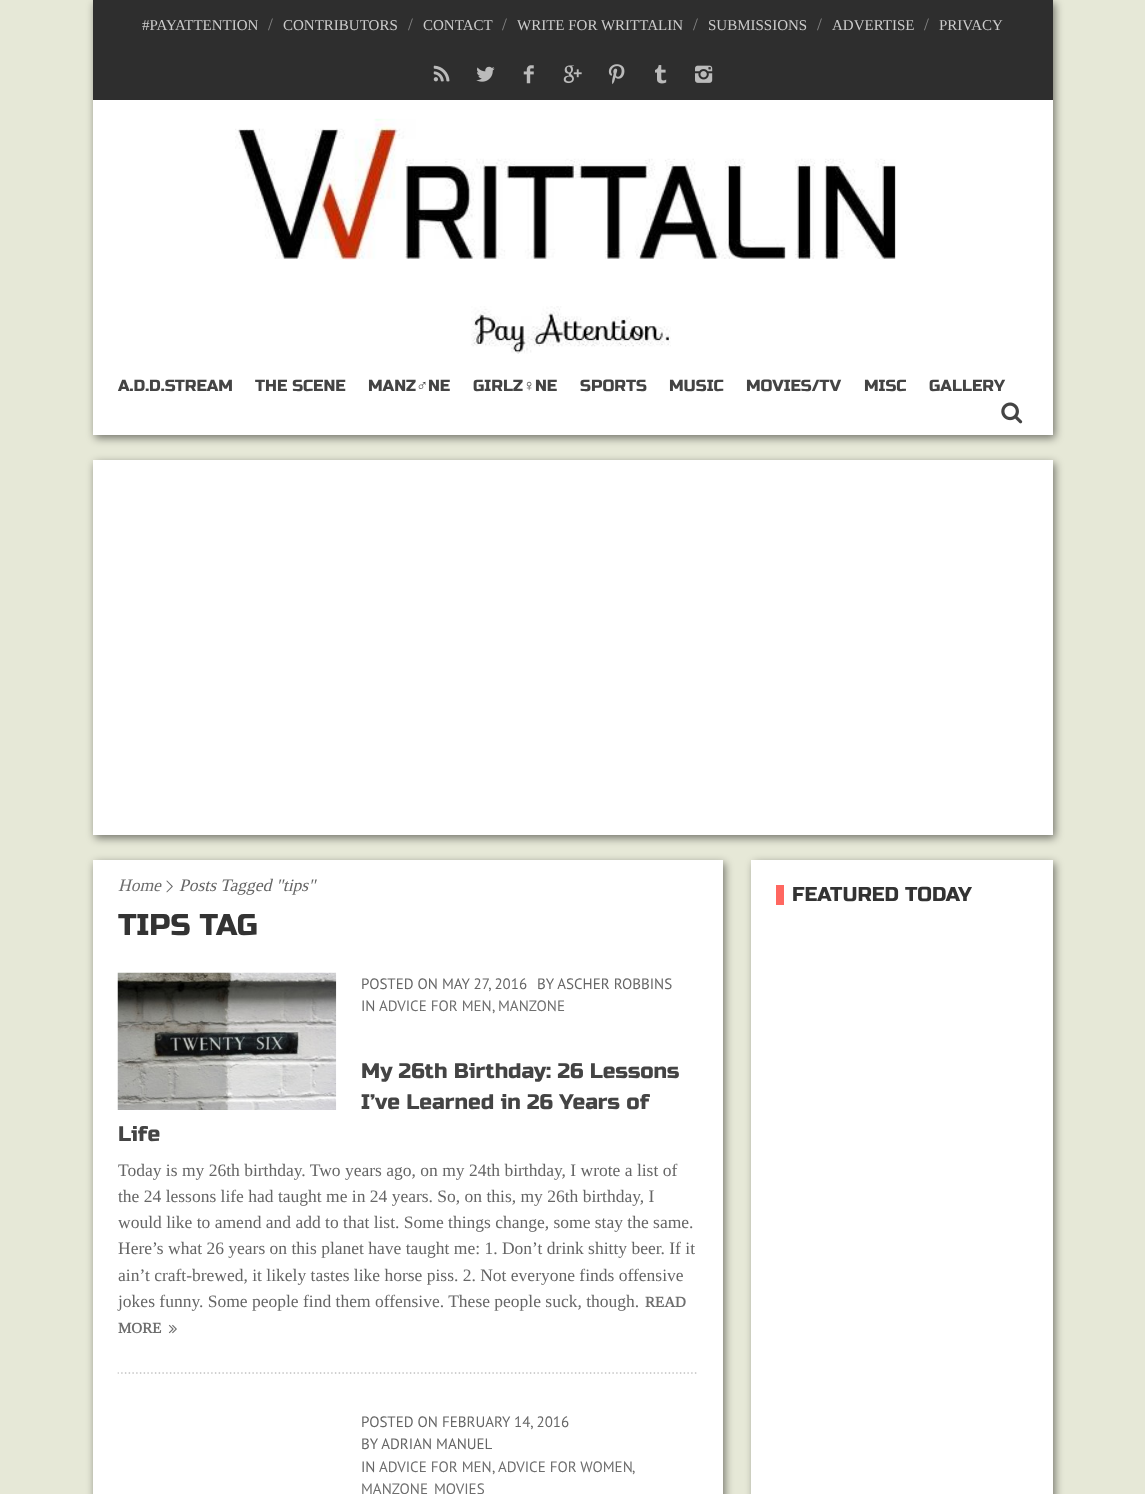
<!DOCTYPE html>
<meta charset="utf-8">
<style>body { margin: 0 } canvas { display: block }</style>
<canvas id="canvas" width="1145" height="1494"></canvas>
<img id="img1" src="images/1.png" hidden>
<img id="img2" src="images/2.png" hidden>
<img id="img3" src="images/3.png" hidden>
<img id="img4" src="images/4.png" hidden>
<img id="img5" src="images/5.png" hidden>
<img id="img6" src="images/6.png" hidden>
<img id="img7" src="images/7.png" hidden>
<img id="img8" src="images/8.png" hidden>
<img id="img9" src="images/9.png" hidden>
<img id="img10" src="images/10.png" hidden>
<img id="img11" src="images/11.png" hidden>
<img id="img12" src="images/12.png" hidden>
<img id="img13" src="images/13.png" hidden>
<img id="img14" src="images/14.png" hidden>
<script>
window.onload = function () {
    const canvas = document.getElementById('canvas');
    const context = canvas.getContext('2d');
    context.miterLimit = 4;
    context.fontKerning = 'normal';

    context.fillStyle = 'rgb(230, 232, 215)';
    context.fillRect(0, 0, 1145, 1494);
    context.fillStyle = 'rgba(0, 0, 0, 0.5)';
    context.filter = 'blur(4.5px)';
    context.beginPath();
    context.rect(95, 3, 960, 435);
    context.fill();
    context.filter = 'none';
    context.fillStyle = 'rgb(255, 255, 255)';
    context.fillRect(93, 100, 960, 335);
    context.fillStyle = 'rgb(46, 46, 46)';
    context.fillRect(93, 0, 960, 100);
    context.drawImage(document.getElementById('img1'), 433, 65, 17, 17);
    context.drawImage(document.getElementById('img2'), 476, 66, 19, 16);
    context.drawImage(document.getElementById('img3'), 523, 65, 11, 19);
    context.drawImage(document.getElementById('img4'), 563, 65, 19, 19);
    context.drawImage(document.getElementById('img5'), 608, 64, 17, 21);
    context.drawImage(document.getElementById('img6'), 655, 65, 12, 19);
    context.drawImage(document.getElementById('img7'), 695, 65, 18, 18);
    context.drawImage(document.getElementById('img8'), 235, 118, 661, 142);
    context.drawImage(document.getElementById('img9'), 471, 306, 200, 48);
    context.drawImage(document.getElementById('img10'), 1001, 402, 22, 22);
    context.fillStyle = 'rgba(0, 0, 0, 0.5)';
    context.filter = 'blur(4.5px)';
    context.beginPath();
    context.rect(95, 463, 960, 375);
    context.fill();
    context.filter = 'none';
    context.fillStyle = 'rgb(255, 255, 255)';
    context.fillRect(93, 460, 960, 375);
    context.fillStyle = 'rgba(0, 0, 0, 0.5)';
    context.filter = 'blur(4.5px)';
    context.beginPath();
    context.rect(95, 863, 630, 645);
    context.fill();
    context.filter = 'none';
    context.fillStyle = 'rgb(255, 255, 255)';
    context.fillRect(93, 860, 630, 634);
    context.drawImage(document.getElementById('img11'), 166, 880, 7, 13);
    context.drawImage(document.getElementById('img12'), 117, 972, 220, 138);
    context.drawImage(document.getElementById('img13'), 168, 1324, 9, 10);
    context.drawImage(document.getElementById('img14'), 117, 1372, 580, 2);
    context.fillStyle = 'rgba(0, 0, 0, 0.5)';
    context.filter = 'blur(4.5px)';
    context.beginPath();
    context.rect(754, 863, 301, 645);
    context.fill();
    context.filter = 'none';
    context.fillStyle = 'rgb(255, 255, 255)';
    context.fillRect(751, 860, 302, 634);
    context.fillStyle = 'rgb(255, 103, 96)';
    context.fillRect(776, 885, 8, 20);
    context.font = '15px Tinos';
    context.fillStyle = 'rgb(204, 204, 204)';
    context.fillText('#PAYATTENTION', 142, 30);
    context.font = '17.5px Tinos';
    context.fillStyle = 'rgb(136, 136, 136)';
    context.fillText('/', 268, 30);
    context.font = '15px Tinos';
    context.fillStyle = 'rgb(204, 204, 204)';
    context.fillText('CONTRIBUTORS', 283, 30);
    context.font = '17.5px Tinos';
    context.fillStyle = 'rgb(136, 136, 136)';
    context.fillText('/', 408, 30);
    context.font = '15px Tinos';
    context.fillStyle = 'rgb(204, 204, 204)';
    context.fillText('CONTACT', 423, 30);
    context.font = '17.5px Tinos';
    context.fillStyle = 'rgb(136, 136, 136)';
    context.fillText('/', 502, 30);
    context.font = '15px Tinos';
    context.fillStyle = 'rgb(204, 204, 204)';
    context.fillText('WRITE FOR WRITTALIN', 517, 30);
    context.font = '17.5px Tinos';
    context.fillStyle = 'rgb(136, 136, 136)';
    context.fillText('/', 693, 30);
    context.font = '15px Tinos';
    context.fillStyle = 'rgb(204, 204, 204)';
    context.fillText('SUBMISSIONS', 708, 30);
    context.font = '17.5px Tinos';
    context.fillStyle = 'rgb(136, 136, 136)';
    context.fillText('/', 817, 30);
    context.font = '15px Tinos';
    context.fillStyle = 'rgb(204, 204, 204)';
    context.fillText('ADVERTISE', 832, 30);
    context.font = '17.5px Tinos';
    context.fillStyle = 'rgb(136, 136, 136)';
    context.fillText('/', 924, 30);
    context.font = '15px Tinos';
    context.fillStyle = 'rgb(204, 204, 204)';
    context.fillText('PRIVACY', 939, 30);
    context.font = '16.25px Russo One';
    context.fillStyle = 'rgb(68, 68, 68)';
    context.fillText('A.D.D.STREAM', 118, 391);
    context.fillText('THE SCENE', 255, 391);
    context.fillText('MANZ', 368, 391);
    context.font = '16.25px Liberation Sans';
    context.fillText('♂', 416, 391);
    context.font = '16.25px Russo One';
    context.fillText('NE', 428, 391);
    context.fillText('GIRLZ', 473, 391);
    context.font = '16.25px Liberation Sans';
    context.fillText('♀', 523, 391);
    context.font = '16.25px Russo One';
    context.fillText('NE', 535, 391);
    context.fillText('SPORTS', 580, 391);
    context.fillText('MUSIC', 669, 391);
    context.fillText('MOVIES/TV', 746, 391);
    context.fillText('MISC', 864, 391);
    context.fillText('GALLERY', 929, 391);
    context.font = 'italic 17.5px Tinos';
    context.fillStyle = 'rgb(110, 110, 110)';
    context.fillText('Home', 118, 891);
    context.fillStyle = 'rgb(102, 102, 102)';
    context.fillText('Posts Tagged "tips"', 179, 891);
    context.save();
    context.beginPath();
    context.rect(118, 911, 580, 30);
    context.clip();
    context.font = '30px Russo One';
    context.fillStyle = 'rgb(51, 51, 51)';
    context.fillText('TIPS TAG', 118, 935);
    context.restore();
    context.font = '15px PT Sans';
    context.fillText('POSTED ON MAY 27, 2016', 361, 989);
    context.fillText('BY ASCHER ROBBINS', 537, 989);
    context.fillText('IN', 361, 1011);
    context.fillStyle = 'rgb(110, 110, 110)';
    context.fillText('ADVICE FOR MEN', 379, 1011);
    context.fillStyle = 'rgb(102, 102, 102)';
    context.fillText(',', 492, 1011);
    context.fillStyle = 'rgb(110, 110, 110)';
    context.fillText('MANZONE', 498, 1011);
    context.font = '21.25px Russo One';
    context.fillStyle = 'rgb(68, 68, 68)';
    context.fillText('My 26th Birthday: 26 Lessons', 361, 1078);
    context.fillText('I’ve Learned in 26 Years of', 361, 1109);
    context.fillText('Life', 118, 1141);
    context.font = '17.5px Tinos';
    context.fillStyle = 'rgb(102, 102, 102)';
    context.fillText('Today is my 26th birthday. Two years ago, on my 24th birthday, I wrote a list of', 118, 1176);
    context.fillText('the 24 lessons life had taught me in 24 years. So, on this, my 26th birthday, I', 118, 1202);
    context.fillText('would like to amend and add to that list. Some things change, some stay the same.', 118, 1228);
    context.fillText('Here’s what 26 years on this planet have taught me: 1. Don’t drink shitty beer. If it', 118, 1254);
    context.fillText('ain’t craft-brewed, it likely tastes like horse piss. 2. Not everyone finds offensive', 118, 1281);
    context.fillText('jokes funny. Some people find them offensive. These people suck, though.', 118, 1307);
    context.font = 'bold 15px Tinos';
    context.fillStyle = 'rgb(110, 110, 110)';
    context.fillText('READ', 645, 1307);
    context.fillText('MORE', 118, 1333);
    context.font = '15px PT Sans';
    context.fillStyle = 'rgb(102, 102, 102)';
    context.fillText('POSTED ON FEBRUARY 14, 2016', 361, 1427);
    context.fillText('BY ADRIAN MANUEL', 361, 1449);
    context.fillText('IN', 361, 1472);
    context.fillStyle = 'rgb(110, 110, 110)';
    context.fillText('ADVICE FOR MEN', 379, 1472);
    context.fillStyle = 'rgb(102, 102, 102)';
    context.fillText(',', 492, 1472);
    context.fillStyle = 'rgb(110, 110, 110)';
    context.fillText('ADVICE FOR WOMEN', 498, 1472);
    context.fillStyle = 'rgb(102, 102, 102)';
    context.fillText(',', 632, 1472);
    context.fillStyle = 'rgb(110, 110, 110)';
    context.fillText('MANZONE', 361, 1494);
    context.fillText('MOVIES', 434, 1494);
    context.font = '20px Russo One';
    context.fillStyle = 'rgb(51, 51, 51)';
    context.fillText('FEATURED TODAY', 792, 901);
};
</script>
